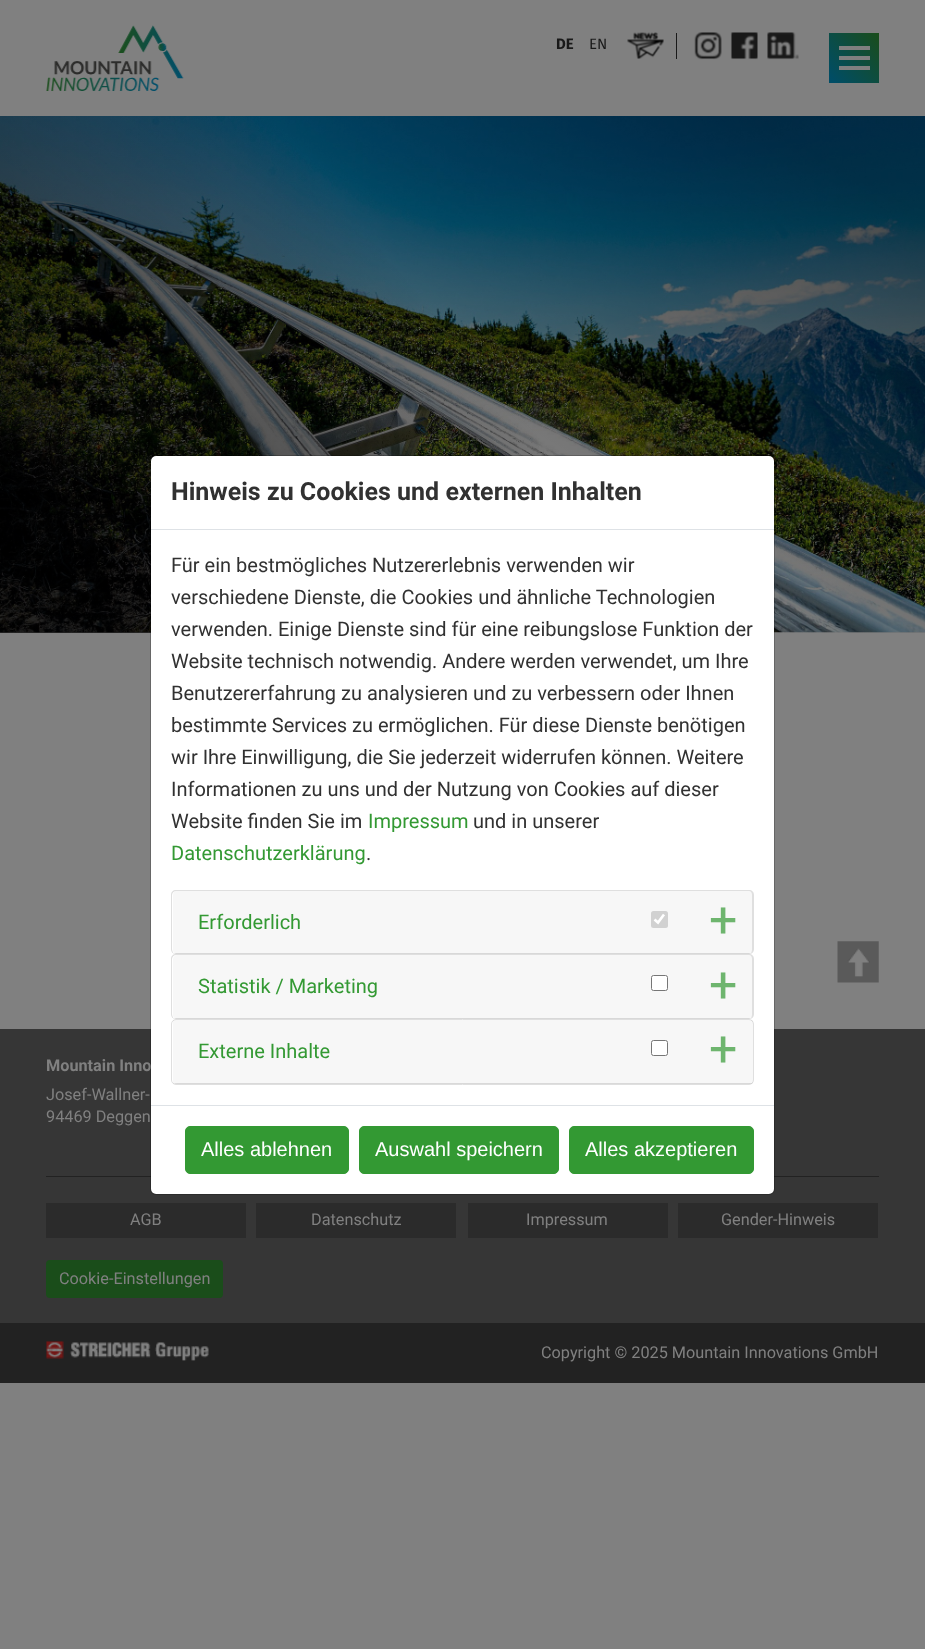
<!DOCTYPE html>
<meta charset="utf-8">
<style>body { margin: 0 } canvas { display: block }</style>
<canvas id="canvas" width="925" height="1649"></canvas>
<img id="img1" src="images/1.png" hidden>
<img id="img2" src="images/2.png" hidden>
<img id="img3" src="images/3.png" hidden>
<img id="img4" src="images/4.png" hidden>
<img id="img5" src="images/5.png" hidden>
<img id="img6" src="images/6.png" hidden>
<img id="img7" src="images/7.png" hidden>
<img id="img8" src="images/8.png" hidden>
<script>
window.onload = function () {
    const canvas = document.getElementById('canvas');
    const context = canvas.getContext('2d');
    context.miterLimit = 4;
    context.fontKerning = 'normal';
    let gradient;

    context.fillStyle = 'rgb(128, 128, 128)';
    context.fillRect(0, 0, 925, 1649);
    context.drawImage(document.getElementById('img1'), 46, 25, 138, 66);
    context.fillStyle = 'rgb(25, 25, 25)';
    context.fillRect(676, 33, 1, 26);
    context.drawImage(document.getElementById('img2'), 627, 32, 37, 27);
    context.drawImage(document.getElementById('img3'), 694, 32, 28, 28);
    context.drawImage(document.getElementById('img4'), 730, 32, 28, 28);
    context.drawImage(document.getElementById('img5'), 767, 32, 32, 28);
    gradient = context.createLinearGradient(827, 80, 881, 35);
    gradient.addColorStop(0.05, 'rgb(0, 77, 102)');
    gradient.addColorStop(1, 'rgb(26, 77, 26)');
    context.fillStyle = gradient;
    context.fillRect(829, 33, 50, 50);
    context.fillStyle = 'rgb(128, 128, 128)';
    context.fillRect(839, 56, 31, 4);
    context.fillRect(839, 46, 31, 4);
    context.fillRect(839, 66, 31, 4);
    context.drawImage(document.getElementById('img6'), 0, 116, 925, 517);
    gradient = context.createLinearGradient(25, 662, 715, 83);
    gradient.addColorStop(0.1, 'rgba(0, 0, 0, 0.7)');
    gradient.addColorStop(0.6, 'rgba(0, 0, 0, 0)');
    context.fillStyle = gradient;
    context.fillRect(0, 116, 539, 517);
    gradient = context.createLinearGradient(691, -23, 234, 768);
    gradient.addColorStop(0.1, 'rgba(0, 0, 0, 0.4)');
    gradient.addColorStop(0.6, 'rgba(0, 0, 0, 0)');
    context.fillStyle = gradient;
    context.fillRect(0, 116, 925, 517);
    context.fillStyle = 'rgb(54, 54, 54)';
    context.fillRect(0, 1029, 925, 294);
    context.drawImage(document.getElementById('img7'), 837, 941, 42, 42);
    context.fillStyle = 'rgb(34, 34, 34)';
    context.fillRect(46, 1176, 833, 1);
    context.fillStyle = 'rgb(43, 43, 43)';
    context.fillRect(46, 1203, 200, 35);
    context.fillRect(256, 1203, 200, 35);
    context.fillRect(468, 1203, 200, 35);
    context.fillRect(678, 1203, 200, 35);
    context.fillStyle = 'rgb(26, 77, 26)';
    context.beginPath();
    context.roundRect(46, 1260, 177, 38, 4);
    context.fill();
    context.fillStyle = 'rgb(34, 34, 34)';
    context.fillRect(0, 1323, 925, 60);
    context.drawImage(document.getElementById('img8'), 46, 1341, 163, 20);
    context.font = 'bold 15px Fira Sans';
    context.fillStyle = 'rgb(25, 25, 25)';
    context.fillText('DE', 556, 49);
    context.font = '15px Fira Sans';
    context.fillText('EN', 589, 49);
    context.font = 'bold 16.25px Roboto';
    context.fillStyle = 'rgb(128, 128, 128)';
    context.fillText('Mountain Inno', 46, 1071);
    context.fillStyle = 'rgb(255, 255, 255)';
    context.beginPath();
    context.roundRect(151, 456, 623, 738, 5);
    context.fill();
    context.beginPath();
    context.roundRect(150.5, 455.5, 624, 739, 5.5);
    context.strokeStyle = 'rgba(0, 0, 0, 0.2)';
    context.stroke();
    context.beginPath();
    context.roundRect(171.5, 1019.5, 582, 65, 4.5);
    context.strokeStyle = 'rgb(223, 223, 223)';
    context.stroke();
    context.fillStyle = 'rgba(0, 0, 0, 0.03)';
    context.fillRect(173, 1020, 580, 64);
    context.font = '50px Roboto';
    context.fillStyle = 'rgb(110, 181, 110)';
    context.fillText('+', 709, 1066);
    context.font = '20px Roboto';
    context.fillStyle = 'rgb(51, 153, 51)';
    context.fillText('Externe Inhalte', 198, 1058);
    context.fillStyle = 'rgb(255, 255, 255)';
    context.beginPath();
    context.roundRect(651.5, 1040.5, 16, 15, 2);
    context.fill();
    context.strokeStyle = 'rgb(118, 118, 118)';
    context.stroke();
    context.save();
    context.beginPath();
    context.roundRect(173, 1020, 580, 64, 4);
    context.clip();
    context.fillStyle = 'rgba(0, 0, 0, 0.12)';
    context.fillRect(173, 1083, 580, 1);
    context.restore();
    context.fillStyle = 'rgb(223, 223, 223)';
    context.beginPath();
    context.moveTo(176, 954);
    context.lineTo(749, 954);
    context.bezierCurveTo(752, 954, 754, 956, 754, 959);
    context.lineTo(754, 1014);
    context.bezierCurveTo(754, 1017, 752, 1019, 749, 1019);
    context.lineTo(176, 1019);
    context.bezierCurveTo(173, 1019, 171, 1017, 171, 1014);
    context.lineTo(171, 959);
    context.bezierCurveTo(171, 956, 173, 954, 176, 954);
    context.closePath();
    context.moveTo(176, 955);
    context.lineTo(749, 955);
    context.bezierCurveTo(751, 955, 752, 957, 752, 959);
    context.lineTo(752, 1014);
    context.bezierCurveTo(752, 1017, 751, 1019, 749, 1019);
    context.lineTo(176, 1019);
    context.bezierCurveTo(174, 1019, 172, 1017, 172, 1014);
    context.lineTo(172, 959);
    context.bezierCurveTo(172, 957, 174, 955, 176, 955);
    context.closePath();
    context.fill('evenodd');
    context.fillStyle = 'rgba(0, 0, 0, 0.03)';
    context.beginPath();
    context.moveTo(177, 955);
    context.bezierCurveTo(175, 955, 173, 957, 173, 959);
    context.lineTo(173, 1016);
    context.bezierCurveTo(174, 1018, 175, 1019, 176, 1019);
    context.lineTo(749, 1019);
    context.bezierCurveTo(751, 1019, 752, 1017, 752, 1014);
    context.lineTo(752, 959);
    context.bezierCurveTo(752, 957, 751, 955, 749, 955);
    context.closePath();
    context.fill();
    context.font = '50px Roboto';
    context.fillStyle = 'rgb(110, 181, 110)';
    context.fillText('+', 709, 1002);
    context.font = '20px Roboto';
    context.fillStyle = 'rgb(51, 153, 51)';
    context.fillText('Statistik / Marketing', 198, 993);
    context.fillStyle = 'rgb(255, 255, 255)';
    context.beginPath();
    context.roundRect(651.5, 975.5, 16, 15, 2);
    context.fill();
    context.stroke();
    context.fillStyle = 'rgb(216, 216, 216)';
    context.beginPath();
    context.moveTo(751, 1018);
    context.lineTo(749, 1019);
    context.lineTo(272, 1019);
    context.lineTo(176, 1019);
    context.lineTo(174, 1018);
    context.closePath();
    context.fill();
    context.fillStyle = 'rgb(223, 223, 223)';
    context.beginPath();
    context.moveTo(176, 890);
    context.lineTo(749, 890);
    context.bezierCurveTo(752, 890, 754, 892, 754, 895);
    context.lineTo(754, 949);
    context.bezierCurveTo(754, 952, 752, 954, 749, 954);
    context.lineTo(176, 954);
    context.bezierCurveTo(173, 954, 171, 952, 171, 949);
    context.lineTo(171, 895);
    context.bezierCurveTo(171, 892, 173, 890, 176, 890);
    context.closePath();
    context.moveTo(176, 891);
    context.lineTo(749, 891);
    context.bezierCurveTo(751, 891, 752, 893, 752, 895);
    context.lineTo(752, 949);
    context.bezierCurveTo(752, 952, 751, 954, 749, 954);
    context.lineTo(176, 954);
    context.bezierCurveTo(174, 954, 172, 952, 172, 949);
    context.lineTo(172, 895);
    context.bezierCurveTo(172, 893, 174, 891, 176, 891);
    context.closePath();
    context.fill('evenodd');
    context.fillStyle = 'rgba(0, 0, 0, 0.03)';
    context.beginPath();
    context.moveTo(176, 891);
    context.lineTo(749, 891);
    context.bezierCurveTo(751, 891, 752, 893, 752, 895);
    context.lineTo(752, 949);
    context.bezierCurveTo(752, 952, 751, 954, 749, 954);
    context.lineTo(176, 954);
    context.bezierCurveTo(175, 954, 174, 953, 173, 951);
    context.lineTo(173, 895);
    context.bezierCurveTo(173, 893, 174, 892, 175, 891);
    context.closePath();
    context.fill();
    context.font = '50px Roboto';
    context.fillStyle = 'rgb(110, 181, 110)';
    context.fillText('+', 709, 937);
    context.font = '20px Roboto';
    context.fillStyle = 'rgb(51, 153, 51)';
    context.fillText('Erforderlich', 198, 929);
    context.fillStyle = 'rgb(209, 209, 209)';
    context.beginPath();
    context.roundRect(651, 911, 17, 17, 2.5);
    context.fill();
    context.beginPath();
    context.moveTo(654.5, 919.5);
    context.lineTo(658, 922.5);
    context.lineTo(664, 914.5);
    context.strokeStyle = 'rgb(255, 255, 255)';
    context.lineWidth = 2.6;
    context.stroke();
    context.fillStyle = 'rgb(216, 216, 216)';
    context.beginPath();
    context.moveTo(751, 953);
    context.lineTo(749, 954);
    context.lineTo(272, 954);
    context.lineTo(176, 954);
    context.lineTo(174, 953);
    context.closePath();
    context.fill();
    context.fillStyle = 'rgb(49, 49, 49)';
    context.fillText('.', 366, 860);
    context.fillStyle = 'rgb(51, 153, 51)';
    context.fillText('Datenschutzerklärung', 171, 860);
    context.fillStyle = 'rgb(49, 49, 49)';
    context.fillText('und in unserer', 473, 828);
    context.fillStyle = 'rgb(51, 153, 51)';
    context.fillText('Impressum', 368, 828);
    context.fillStyle = 'rgb(49, 49, 49)';
    context.fillText('Website finden Sie im', 171, 828);
    context.fillText('Informationen zu uns und der Nutzung von Cookies auf dieser', 171, 796);
    context.fillText('wir Ihre Einwilligung, die Sie jederzeit widerrufen können. Weitere', 171, 764);
    context.fillText('bestimmte Services zu ermöglichen. Für diese Dienste benötigen', 171, 732);
    context.fillText('Benutzererfahrung zu analysieren und zu verbessern oder Ihnen', 171, 700);
    context.fillText('Website technisch notwendig. Andere werden verwendet, um Ihre', 171, 668);
    context.fillText('verwenden. Einige Dienste sind für eine reibungslose Funktion der', 171, 636);
    context.fillText('verschiedene Dienste, die Cookies und ähnliche Technologien', 171, 604);
    context.fillText('Für ein bestmögliches Nutzererlebnis verwenden wir', 171, 572);
    context.fillStyle = 'rgb(51, 153, 51)';
    context.beginPath();
    context.roundRect(569.5, 1126.5, 184, 47, 4.5);
    context.fill();
    context.strokeStyle = 'rgb(51, 153, 51)';
    context.lineWidth = 1;
    context.stroke();
    context.font = '20px Liberation Sans';
    context.fillStyle = 'rgb(255, 255, 255)';
    context.fillText('Alles akzeptieren', 585, 1156);
    context.fillStyle = 'rgb(51, 153, 51)';
    context.beginPath();
    context.roundRect(359.5, 1126.5, 199, 47, 4.5);
    context.fill();
    context.stroke();
    context.fillStyle = 'rgb(255, 255, 255)';
    context.fillText('Auswahl speichern', 375, 1156);
    context.fillStyle = 'rgb(51, 153, 51)';
    context.beginPath();
    context.roundRect(185.5, 1126.5, 163, 47, 4.5);
    context.fill();
    context.stroke();
    context.fillStyle = 'rgb(255, 255, 255)';
    context.fillText('Alles ablehnen', 201, 1156);
    context.fillStyle = 'rgb(222, 226, 230)';
    context.fillRect(151, 1105, 623, 1);
    context.font = 'bold 25px Roboto';
    context.fillStyle = 'rgb(49, 49, 49)';
    context.fillText('Hinweis zu Cookies und externen Inhalten', 171, 500);
    context.fillStyle = 'rgb(222, 226, 230)';
    context.fillRect(151, 529, 623, 1);
    context.font = '16.25px Roboto';
    context.fillStyle = 'rgb(128, 128, 128)';
    context.fillText('Josef-Wallner-', 46, 1100);
    context.fillText('94469 Deggen', 46, 1122);
    context.fillText('AGB', 130, 1225);
    context.fillText('Datenschutz', 311, 1225);
    context.fillText('Impressum', 526, 1225);
    context.fillText('Gender-Hinweis', 721, 1225);
    context.fillText('Cookie-Einstellungen', 59, 1284);
    context.fillText('Copyright © 2025 Mountain Innovations GmbH', 541, 1358);
};
</script>
